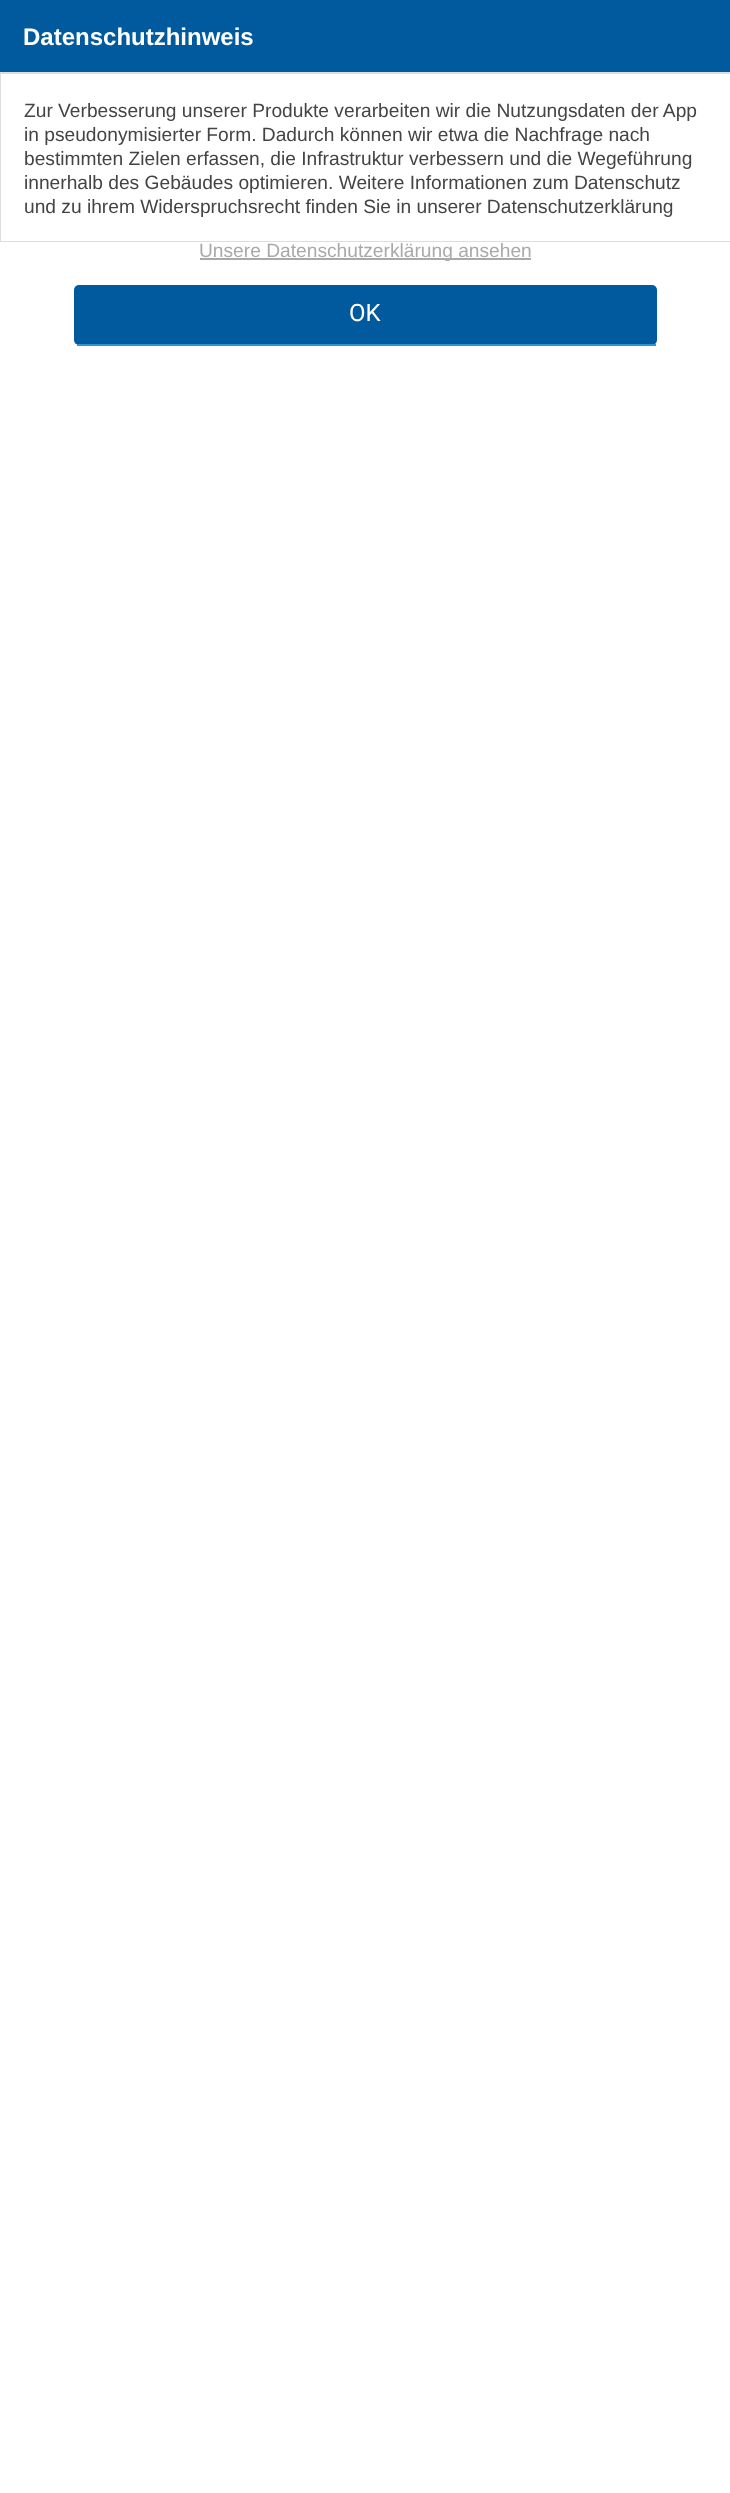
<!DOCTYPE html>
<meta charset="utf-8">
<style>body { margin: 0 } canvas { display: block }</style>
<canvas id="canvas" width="730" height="2493"></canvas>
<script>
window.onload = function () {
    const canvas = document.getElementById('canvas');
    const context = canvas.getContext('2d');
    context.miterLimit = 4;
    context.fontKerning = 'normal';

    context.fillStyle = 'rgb(255, 255, 255)';
    context.fillRect(0, 0, 730, 2493);
    context.fillStyle = 'rgb(0, 90, 157)';
    context.fillRect(0, 0, 730, 72);
    context.strokeStyle = 'rgb(221, 221, 221)';
    context.lineWidth = 2;
    context.strokeRect(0, 73, 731, 169);
    context.fillStyle = 'rgb(255, 255, 255)';
    context.fillRect(0, 242, 730, 1);
    context.fillStyle = 'rgb(169, 169, 169)';
    context.fillRect(200, 258, 331, 2);
    context.fillStyle = 'rgb(0, 90, 157)';
    context.beginPath();
    context.roundRect(74, 285, 583, 60, 5);
    context.fill();
    context.fillStyle = 'rgb(42, 152, 200)';
    context.fillRect(77, 344, 579, 2);
    context.font = 'bold 24px Liberation Sans';
    context.fillStyle = 'rgb(255, 255, 255)';
    context.fillText('Datenschutzhinweis', 23, 45);
    context.font = '19.2px Liberation Sans';
    context.fillStyle = 'rgb(68, 68, 68)';
    context.fillText('Zur Verbesserung unserer Produkte verarbeiten wir die Nutzungsdaten der App', 24, 117);
    context.fillText('in pseudonymisierter Form. Dadurch können wir etwa die Nachfrage nach', 24, 141);
    context.fillText('bestimmten Zielen erfassen, die Infrastruktur verbessern und die Wegeführung', 24, 165);
    context.fillText('innerhalb des Gebäudes optimieren. Weitere Informationen zum Datenschutz', 24, 189);
    context.fillText('und zu ihrem Widerspruchsrecht finden Sie in unserer Datenschutzerklärung', 24, 213);
    context.fillStyle = 'rgb(169, 169, 169)';
    context.fillText('Unsere Datenschutzerklärung ansehen', 199, 257);
    context.font = '24px Roboto';
    context.fillStyle = 'rgb(255, 255, 255)';
    context.fillText('OK', 349, 321);
};
</script>
